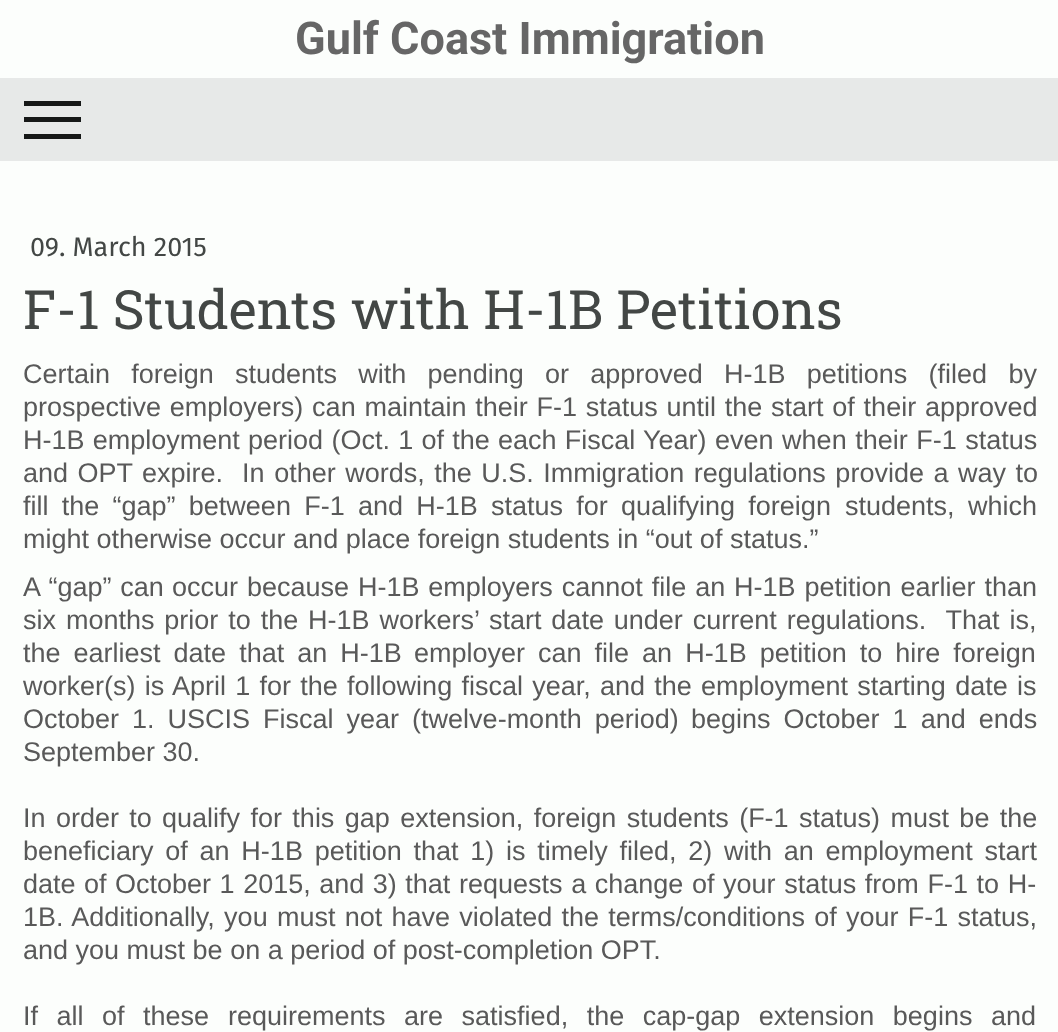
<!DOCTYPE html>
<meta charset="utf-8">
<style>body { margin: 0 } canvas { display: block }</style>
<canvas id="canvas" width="1058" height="1032"></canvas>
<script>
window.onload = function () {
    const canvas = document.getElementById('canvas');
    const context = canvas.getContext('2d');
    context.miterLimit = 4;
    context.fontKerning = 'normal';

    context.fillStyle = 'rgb(252, 254, 252)';
    context.fillRect(0, 0, 1058, 1032);
    context.fillStyle = 'rgb(231, 233, 232)';
    context.fillRect(0, 78, 1058, 83);
    context.fillStyle = 'rgb(22, 24, 23)';
    context.fillRect(24, 117, 57, 5);
    context.fillRect(24, 101, 57, 5);
    context.fillRect(24, 134, 57, 5);
    context.font = 'bold 45px Roboto';
    context.fillStyle = 'rgb(102, 102, 102)';
    context.fillText('Gulf Coast Immigration', 295, 54);
    context.font = '27px Fira Sans';
    context.fillStyle = 'rgb(67, 71, 69)';
    context.fillText('09. March 2015', 30, 256);
    context.font = '54px Roboto Slab';
    context.fillText('F-1 Students with H-1B Petitions', 23, 329);
    context.wordSpacing = '13.75px';
    context.font = '27px Liberation Sans';
    context.fillStyle = 'rgb(89, 89, 89)';
    context.fillText('Certain foreign', 23, 383);
    context.fillText('students with pending or approved H-1B petitions (filed by', 235, 383);
    context.wordSpacing = '1.25px';
    context.fillText('prospective employers) can maintain their F-1 status until the start of their approved', 23, 416);
    context.wordSpacing = '0.75px';
    context.fillText('H-1B employment period (Oct. 1 of the each Fiscal', 23, 449);
    context.wordSpacing = '1px';
    context.fillText('Year) even when their F-1 status', 643, 449);
    context.wordSpacing = '2px';
    context.fillText('and OPT expire.  In other words, the U.S. Immigration regulations provide a way to', 23, 482);
    context.wordSpacing = '5.75px';
    context.fillText('fill the “gap” between F-1 and H-1B status for qualifying foreign', 23, 515);
    context.wordSpacing = '6px';
    context.fillText('students, which', 845, 515);
    context.wordSpacing = '0px';
    context.fillText('might otherwise occur and place foreign students in “out of status.”', 23, 548);
    context.wordSpacing = '1.4px';
    context.fillText('A “gap” can', 23, 596);
    context.fillText('occur because H-1B employers cannot file an H-1B petition earlier than', 172, 596);
    context.wordSpacing = '2.4px';
    context.fillText('six months prior to the H-1B workers’ start date under current regulations.  That is,', 23, 629);
    context.wordSpacing = '5.5px';
    context.fillText('the earliest date that an H-1B', 23, 662);
    context.fillText('employer can file an H-1B petition to hire foreign', 414, 662);
    context.wordSpacing = '1.75px';
    context.fillText('worker(s) is April 1 for the following fiscal year, and the employment starting date is', 23, 695);
    context.wordSpacing = '5.5px';
    context.fillText('October 1. USCIS Fiscal year (twelve-month period)', 23, 728);
    context.fillText('begins October 1 and ends', 691, 728);
    context.wordSpacing = '0px';
    context.fillText('September 30.', 23, 761);
    context.wordSpacing = '2.9px';
    context.fillText('In order to', 23, 827);
    context.fillText('qualify for this gap extension, foreign students (F-1 status) must be the', 162, 827);
    context.wordSpacing = '4.25px';
    context.fillText('beneficiary of an H-1B petition that 1) is timely filed, 2) with an employment start', 23, 860);
    context.wordSpacing = '1px';
    context.fillText('date of October 1 2015, and 3) that', 23, 893);
    context.wordSpacing = '1.1px';
    context.fillText('requests a change of your status from F-1 to H-', 459, 893);
    context.wordSpacing = '1.75px';
    context.fillText('1B. Additionally, you must not have violated the terms/conditions of your F-1 status,', 23, 926);
    context.wordSpacing = '0px';
    context.fillText('and you must be on a period of post-completion OPT.', 23, 959);
    context.wordSpacing = '11px';
    context.fillText('If all of these', 23, 1025);
    context.fillText('requirements are satisfied, the cap-gap extension begins and', 228, 1025);
};
</script>
